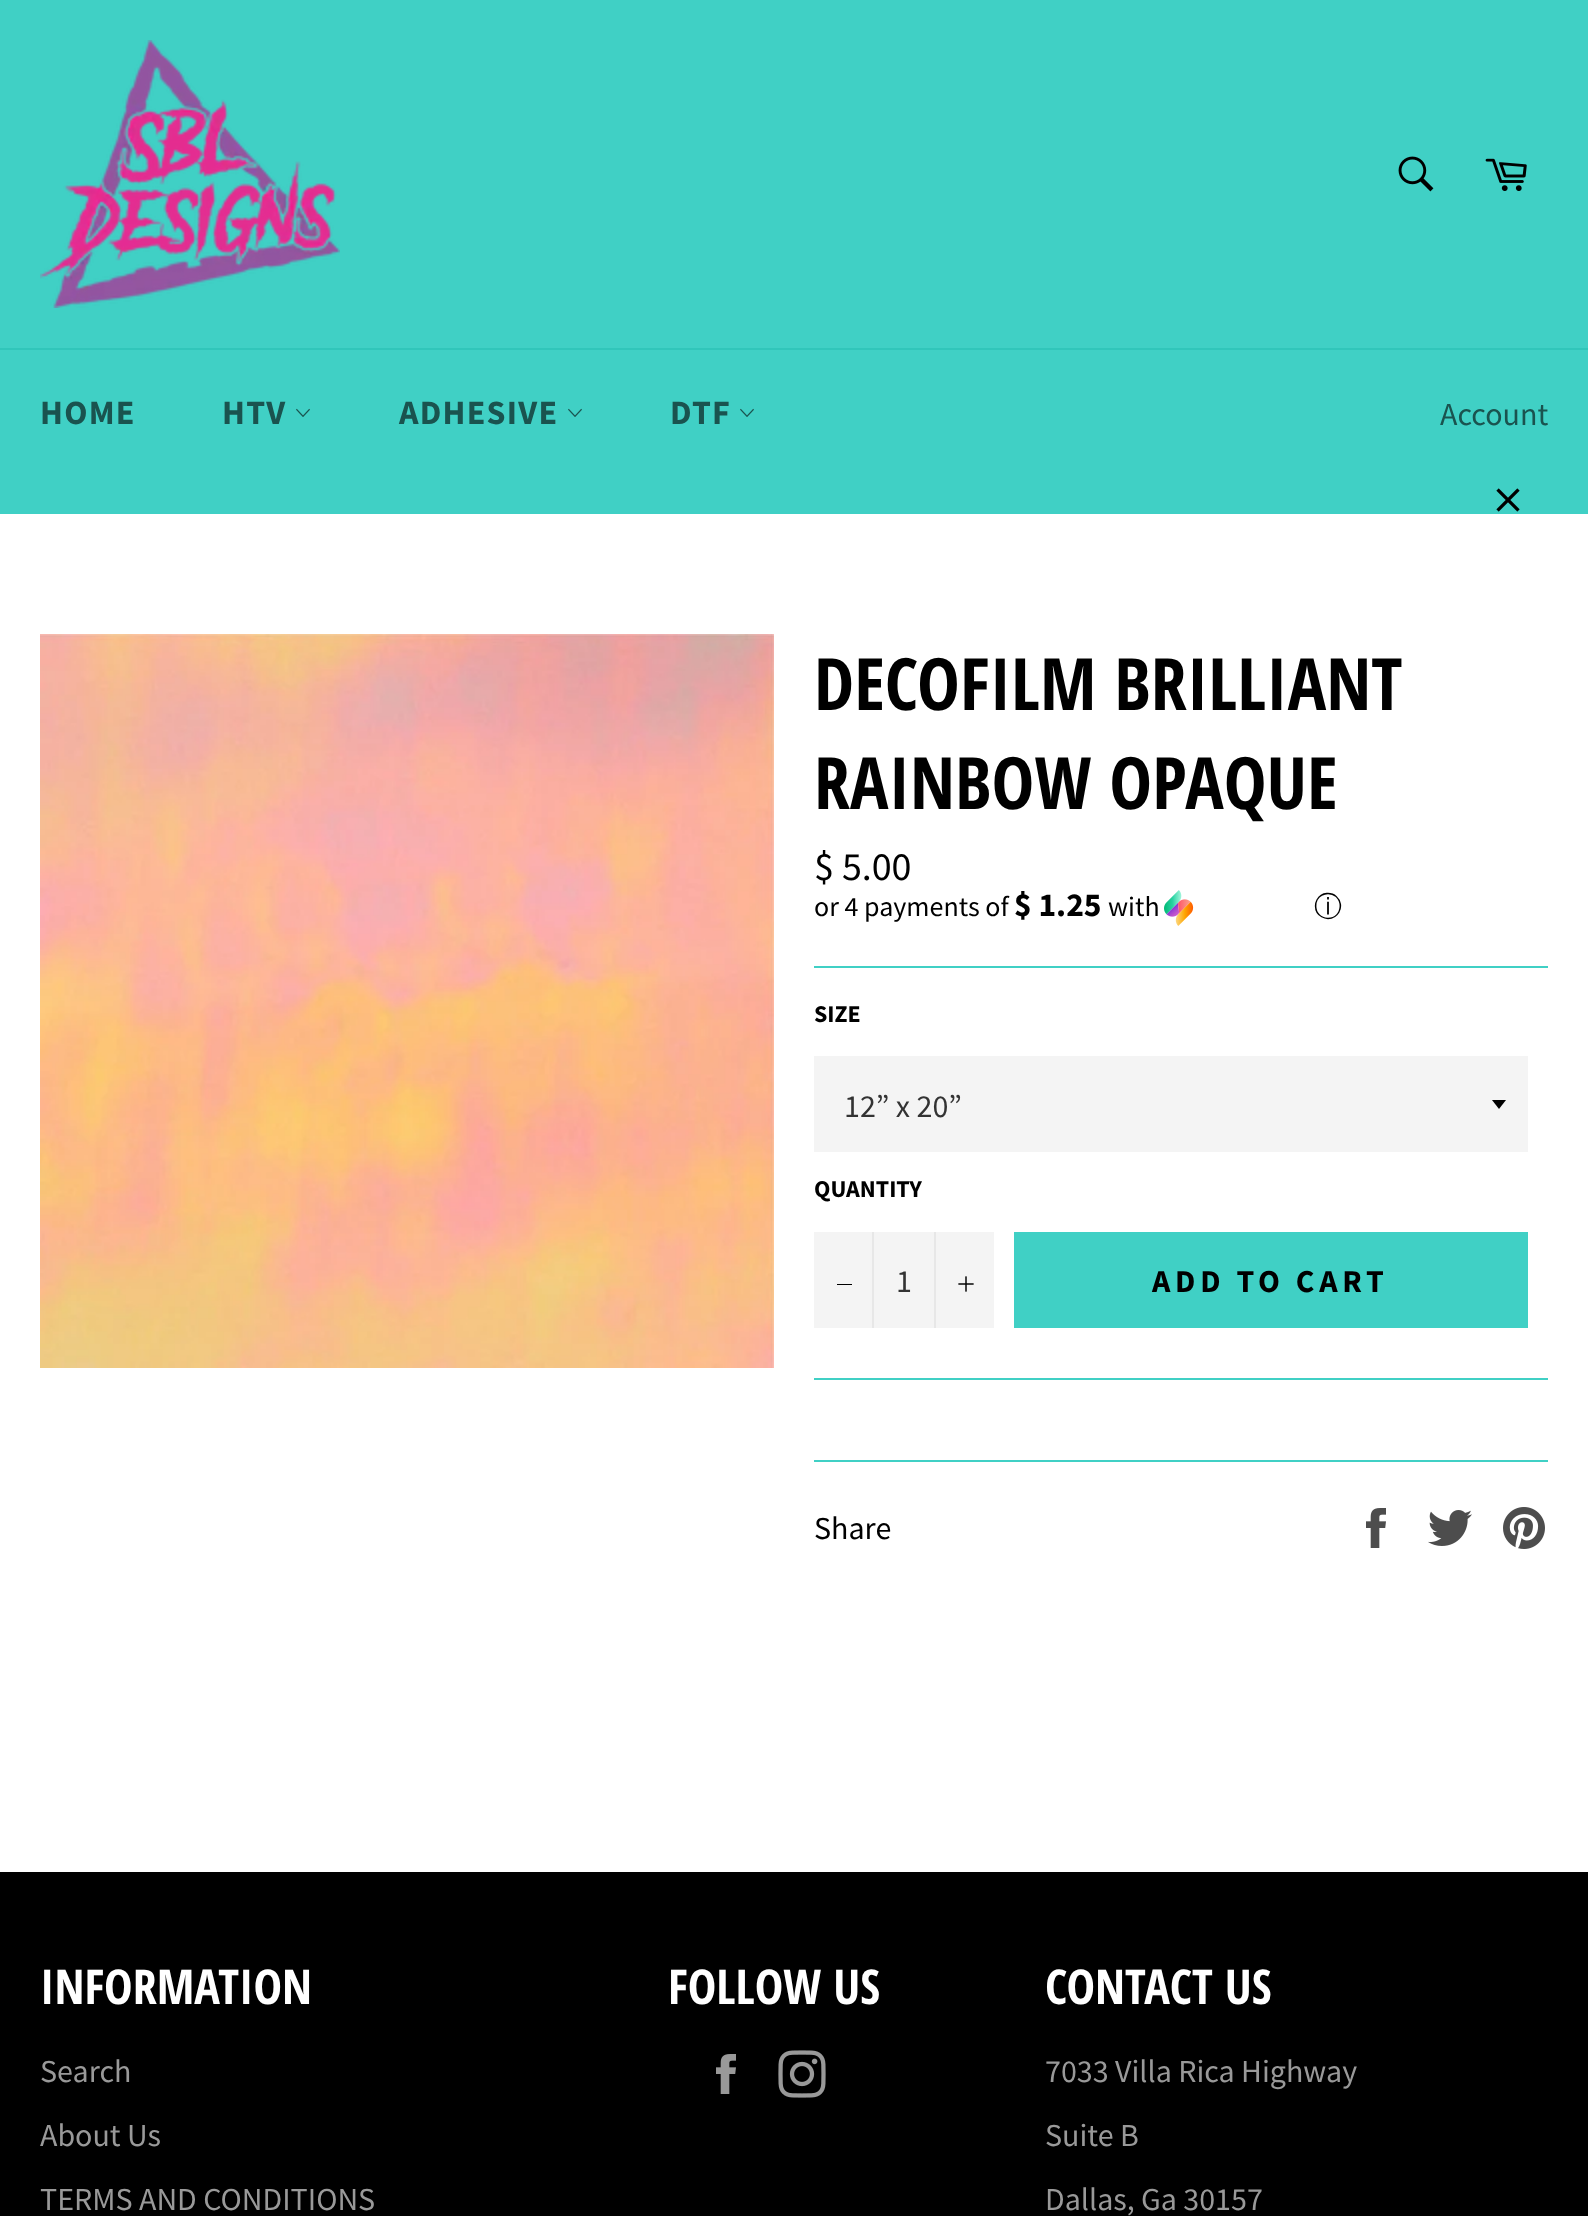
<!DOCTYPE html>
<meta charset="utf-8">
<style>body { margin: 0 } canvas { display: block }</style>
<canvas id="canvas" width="1588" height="2216"></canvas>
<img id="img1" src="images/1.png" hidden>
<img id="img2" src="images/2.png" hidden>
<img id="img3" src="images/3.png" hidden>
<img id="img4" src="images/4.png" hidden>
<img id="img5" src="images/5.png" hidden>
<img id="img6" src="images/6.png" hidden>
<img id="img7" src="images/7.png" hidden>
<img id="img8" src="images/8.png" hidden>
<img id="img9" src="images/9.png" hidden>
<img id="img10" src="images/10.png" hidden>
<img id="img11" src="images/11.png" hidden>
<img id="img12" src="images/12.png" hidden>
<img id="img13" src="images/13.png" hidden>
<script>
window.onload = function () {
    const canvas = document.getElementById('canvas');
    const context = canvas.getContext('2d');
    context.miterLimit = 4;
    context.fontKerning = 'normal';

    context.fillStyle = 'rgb(64, 208, 197)';
    context.fillRect(0, 0, 1588, 2216);
    context.drawImage(document.getElementById('img1'), 40, 40, 300, 268);
    context.drawImage(document.getElementById('img2'), 1398, 156, 36, 36);
    context.drawImage(document.getElementById('img3'), 1485, 158, 42, 33);
    context.fillStyle = 'rgb(49, 198, 186)';
    context.fillRect(0, 348, 1588, 2);
    context.drawImage(document.getElementById('img4'), 296, 408, 14, 9);
    context.drawImage(document.getElementById('img4'), 568, 408, 14, 9);
    context.drawImage(document.getElementById('img4'), 740, 408, 14, 9);
    context.drawImage(document.getElementById('img5'), 1496, 488, 24, 24);
    context.fillStyle = 'rgb(255, 255, 255)';
    context.fillRect(0, 514, 1588, 1358);
    context.drawImage(document.getElementById('img6'), 40, 634, 734, 734);
    context.drawImage(document.getElementById('img7'), 1164, 890, 30, 36);
    context.fillStyle = 'rgb(64, 208, 197)';
    context.fillRect(814, 966, 734, 2);
    context.fillStyle = 'rgb(244, 244, 244)';
    context.fillRect(814, 1056, 714, 96);
    context.fillStyle = 'rgb(0, 0, 0)';
    context.beginPath();
    context.moveTo(1492, 1100);
    context.lineTo(1499, 1109);
    context.lineTo(1506, 1100);
    context.closePath();
    context.fill();
    context.fillStyle = 'rgb(244, 244, 244)';
    context.fillRect(814, 1232, 180, 96);
    context.fillStyle = 'rgb(231, 231, 231)';
    context.fillRect(872, 1232, 2, 96);
    context.fillStyle = 'rgb(0, 0, 0)';
    context.fillRect(837, 1284, 15, 1);
    context.fillStyle = 'rgb(231, 231, 231)';
    context.fillRect(934, 1232, 2, 96);
    context.drawImage(document.getElementById('img8'), 958, 1276, 16, 16);
    context.fillStyle = 'rgb(64, 208, 197)';
    context.fillRect(1014, 1232, 514, 96);
    context.fillRect(814, 1378, 734, 2);
    context.fillRect(814, 1460, 734, 2);
    context.drawImage(document.getElementById('img9'), 1366, 1508, 20, 40);
    context.drawImage(document.getElementById('img10'), 1428, 1510, 44, 36);
    context.drawImage(document.getElementById('img11'), 1503, 1507, 42, 42);
    context.fillStyle = 'rgb(0, 0, 0)';
    context.fillRect(0, 1872, 1588, 344);
    context.drawImage(document.getElementById('img12'), 716, 2054, 20, 40);
    context.drawImage(document.getElementById('img13'), 778, 2050, 48, 48);
    context.letterSpacing = '1.25px';
    context.font = 'bold 34px Source Sans Pro';
    context.fillStyle = 'rgb(26, 83, 79)';
    context.fillText('HOME', 40, 424);
    context.fillText('HTV', 222, 424);
    context.fillText('ADHESIVE', 399, 424);
    context.fillText('DTF', 670, 424);
    context.letterSpacing = '0px';
    context.font = '32px Source Sans Pro';
    context.fillText('Account', 1440, 425);
    context.font = 'bold 72px Open Sans Condensed';
    context.fillStyle = 'rgb(0, 0, 0)';
    context.fillText('DECOFILM BRILLIANT', 814, 710);
    context.fillText('RAINBOW OPAQUE', 814, 809);
    context.font = '40px Source Sans Pro';
    context.fillText('$ 5.00', 814, 880);
    context.font = '28px Source Sans Pro';
    context.fillText('or 4 payments of', 814, 916);
    context.font = 'bold 33.5px Source Sans Pro';
    context.fillText('$ 1.25', 1014, 916);
    context.font = '28px Source Sans Pro';
    context.fillText('with', 1108, 916);
    context.font = '500 28px WenQuanYi Zen Hei';
    context.fillText('ⓘ', 1314, 916);
    context.font = 'bold 24px Source Sans Pro';
    context.fillText('SIZE', 814, 1022);
    context.font = '32px Source Sans Pro';
    context.fillStyle = 'rgb(51, 51, 51)';
    context.fillText('12” x 20”', 844, 1117);
    context.font = 'bold 24px Source Sans Pro';
    context.fillStyle = 'rgb(0, 0, 0)';
    context.fillText('QUANTITY', 814, 1197);
    context.font = '32px Source Sans Pro';
    context.fillStyle = 'rgb(51, 51, 51)';
    context.fillText('1', 896, 1292);
    context.letterSpacing = '4.75px';
    context.font = 'bold 32px Source Sans Pro';
    context.fillStyle = 'rgb(0, 0, 0)';
    context.fillText('ADD TO CART', 1152, 1292);
    context.letterSpacing = '0px';
    context.font = '32px Source Sans Pro';
    context.fillText('Share', 814, 1539);
    context.font = 'bold 48px Open Sans Condensed';
    context.fillStyle = 'rgb(255, 255, 255)';
    context.fillText('INFORMATION', 40, 2004);
    context.font = '32px Source Sans Pro';
    context.fillStyle = 'rgb(153, 153, 153)';
    context.fillText('Search', 40, 2082);
    context.fillText('About Us', 40, 2146);
    context.fillText('TERMS AND CONDITIONS', 40, 2210);
    context.font = 'bold 48px Open Sans Condensed';
    context.fillStyle = 'rgb(255, 255, 255)';
    context.fillText('FOLLOW US', 668, 2004);
    context.fillText('CONTACT US', 1045, 2004);
    context.font = '32px Source Sans Pro';
    context.fillStyle = 'rgb(153, 153, 153)';
    context.fillText('7033 Villa Rica Highway', 1045, 2082);
    context.fillText('Suite B', 1045, 2146);
    context.fillText('Dallas, Ga 30157', 1045, 2210);
};
</script>
